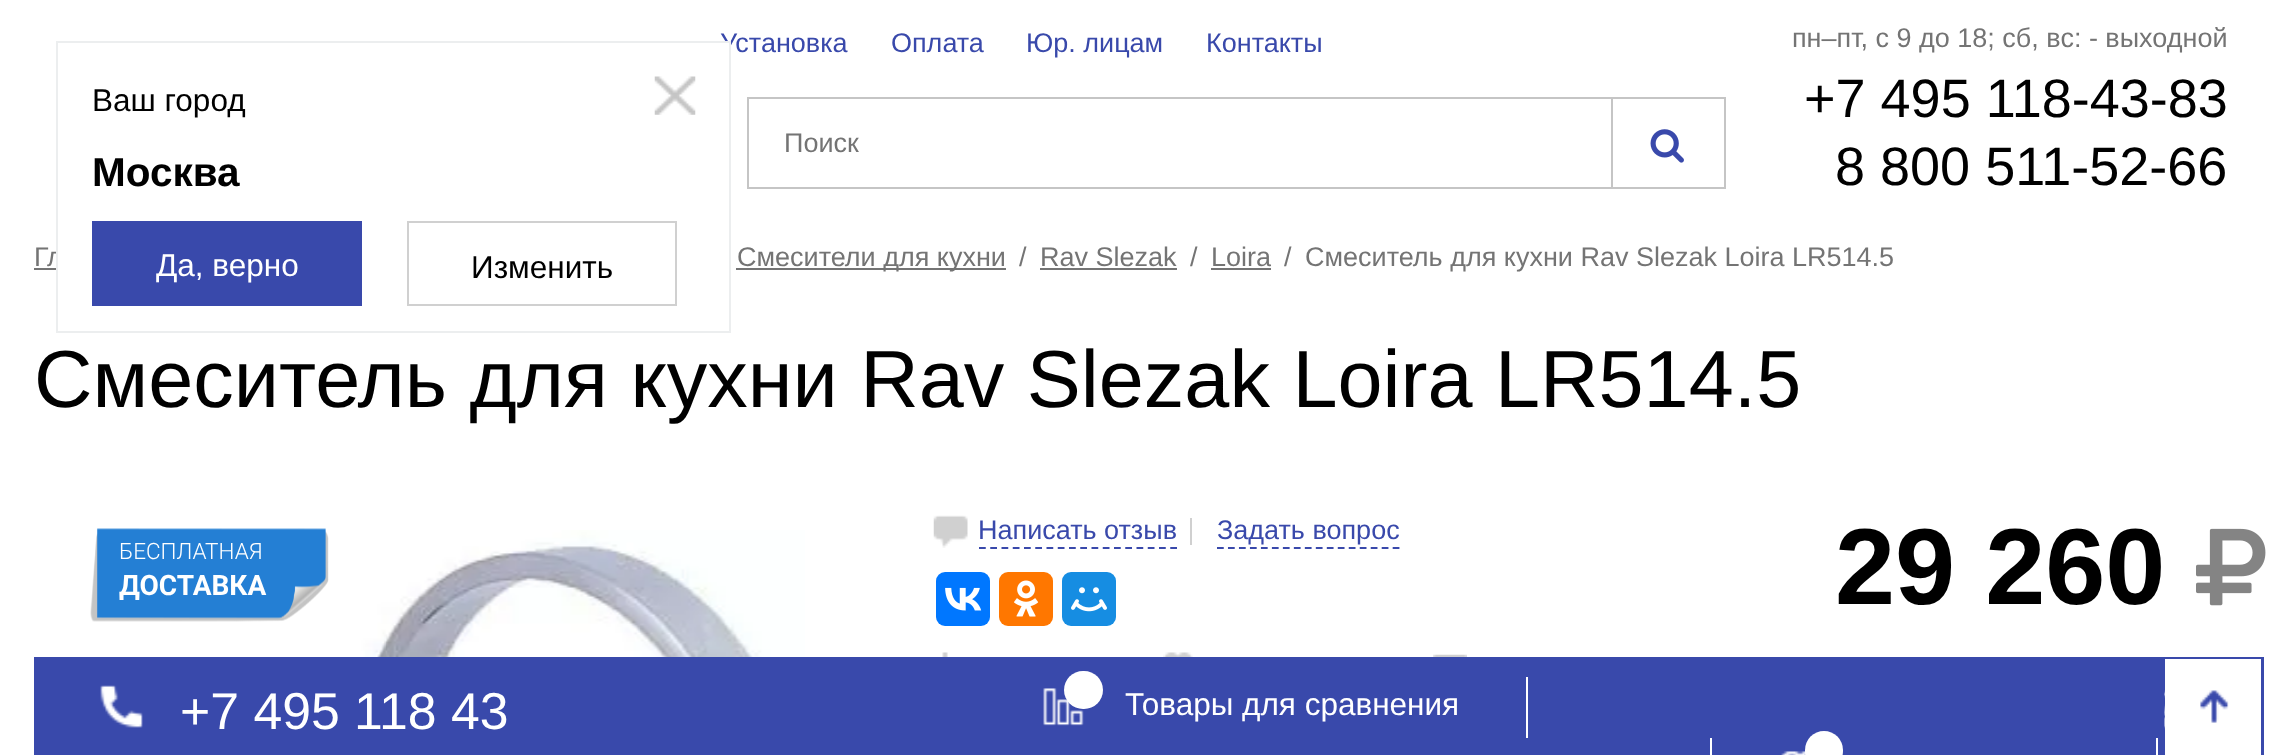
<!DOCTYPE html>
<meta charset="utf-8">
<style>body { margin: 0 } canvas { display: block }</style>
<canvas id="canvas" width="2296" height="755"></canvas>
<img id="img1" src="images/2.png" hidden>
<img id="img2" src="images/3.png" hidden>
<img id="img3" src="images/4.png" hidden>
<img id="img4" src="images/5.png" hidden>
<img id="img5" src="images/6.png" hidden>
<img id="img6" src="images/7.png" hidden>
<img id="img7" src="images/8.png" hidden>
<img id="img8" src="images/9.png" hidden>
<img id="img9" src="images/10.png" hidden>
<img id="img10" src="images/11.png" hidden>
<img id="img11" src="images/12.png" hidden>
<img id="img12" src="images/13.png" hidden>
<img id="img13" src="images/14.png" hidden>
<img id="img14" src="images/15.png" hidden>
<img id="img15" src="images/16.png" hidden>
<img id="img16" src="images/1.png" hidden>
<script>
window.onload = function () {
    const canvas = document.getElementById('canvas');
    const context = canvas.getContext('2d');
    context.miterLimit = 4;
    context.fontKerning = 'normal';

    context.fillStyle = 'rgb(255, 255, 255)';
    context.fillRect(0, 0, 2296, 755);
    context.strokeStyle = 'rgb(197, 197, 197)';
    context.lineWidth = 2;
    context.strokeRect(748, 98, 864, 90);
    context.fillStyle = 'rgb(197, 197, 197)';
    context.fillRect(1613, 97, 113, 2);
    context.fillRect(1724, 97, 2, 92);
    context.fillRect(1613, 187, 113, 2);
    context.drawImage(document.getElementById('img1'), 1650, 129, 34, 34);
    context.fillStyle = 'rgb(116, 116, 116)';
    context.fillRect(34, 268, 22, 2);
    context.fillRect(736, 268, 270, 2);
    context.fillRect(1040, 268, 137, 2);
    context.fillRect(1211, 268, 60, 2);
    context.drawImage(document.getElementById('img2'), 90, 528, 239, 94);
    context.drawImage(document.getElementById('img3'), 346, 530, 459, 127);
    context.beginPath();
    context.moveTo(979, 548);
    context.lineTo(1177, 548);
    context.strokeStyle = 'rgb(57, 73, 171)';
    context.lineWidth = 2.2;
    context.setLineDash([6.75, 4.5]);
    context.stroke();
    context.drawImage(document.getElementById('img4'), 933, 515, 35, 33);
    context.fillStyle = 'rgb(208, 208, 208)';
    context.fillRect(1190, 518, 2, 27);
    context.beginPath();
    context.moveTo(1217, 548);
    context.lineTo(1399.5, 548);
    context.setLineDash([6.75, 4.23]);
    context.stroke();
    context.fillStyle = 'rgb(0, 119, 255)';
    context.beginPath();
    context.roundRect(936, 572, 54, 54, 9);
    context.fill();
    context.drawImage(document.getElementById('img5'), 945, 587, 37, 24);
    context.fillStyle = 'rgb(255, 119, 0)';
    context.beginPath();
    context.roundRect(999, 572, 54, 54, 9);
    context.fill();
    context.drawImage(document.getElementById('img6'), 1014, 580, 25, 37);
    context.fillStyle = 'rgb(22, 141, 226)';
    context.beginPath();
    context.roundRect(1062, 572, 54, 54, 9);
    context.fill();
    context.drawImage(document.getElementById('img7'), 1071, 587, 36, 25);
    context.drawImage(document.getElementById('img8'), 942, 652, 6, 5);
    context.drawImage(document.getElementById('img9'), 1163, 652, 30, 5);
    context.drawImage(document.getElementById('img10'), 1433, 654, 34, 3);
    context.drawImage(document.getElementById('img11'), 2196, 528, 70, 78);
    context.fillStyle = 'rgb(57, 73, 171)';
    context.fillRect(34, 657, 2230, 98);
    context.drawImage(document.getElementById('img12'), 100, 685, 43, 43);
    context.fillStyle = 'rgb(255, 255, 255)';
    context.fillRect(1526, 677, 2, 61);
    context.drawImage(document.getElementById('img13'), 1043, 688, 41, 38);
    context.beginPath();
    context.roundRect(1064, 671, 39, 38, 19);
    context.fill();
    context.fillRect(2156, 738, 2, 17);
    context.fillRect(1710, 738, 2, 17);
    context.drawImage(document.getElementById('img14'), 1781, 751, 25, 4);
    context.beginPath();
    context.roundRect(1805, 731, 38, 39, 19);
    context.fill();
    context.fillRect(2165, 659, 96, 96);
    context.drawImage(document.getElementById('img15'), 2164, 690, 65, 40);
    context.font = '27px Liberation Sans';
    context.fillStyle = 'rgb(57, 73, 171)';
    context.fillText('Установка', 720, 52);
    context.fillText('Оплата', 891, 52);
    context.fillText('Юр. лицам', 1026, 52);
    context.fillText('Контакты', 1206, 52);
    context.fillStyle = 'rgb(116, 116, 116)';
    context.fillText('Поиск', 784, 152);
    context.fillText('пн–пт, с 9 до 18; сб, вс: - выходной', 1792, 47);
    context.font = '54px Liberation Sans';
    context.fillStyle = 'rgb(0, 0, 0)';
    context.fillText('+7 495 118-43-83', 1804, 117);
    context.fillText('8 800 511-52-66', 1835, 185);
    context.font = '27px Liberation Sans';
    context.fillStyle = 'rgb(116, 116, 116)';
    context.fillText('Гл', 34, 266);
    context.fillStyle = 'rgb(255, 255, 255)';
    context.fillRect(58, 43, 671, 223);
    context.strokeStyle = 'rgb(236, 238, 239)';
    context.lineWidth = 2;
    context.setLineDash([]);
    context.strokeRect(57, 42, 673, 290);
    context.drawImage(document.getElementById('img16'), 654, 76, 42, 39);
    context.strokeStyle = 'rgb(208, 208, 208)';
    context.strokeRect(408, 222, 268, 83);
    context.font = '31.5px Liberation Sans';
    context.fillStyle = 'rgb(0, 0, 0)';
    context.fillText('Изменить', 471, 278);
    context.fillStyle = 'rgb(57, 73, 171)';
    context.fillRect(92, 221, 270, 85);
    context.fillStyle = 'rgb(255, 255, 255)';
    context.fillText('Да, верно', 156, 276);
    context.font = 'bold 40.5px Liberation Sans';
    context.fillStyle = 'rgb(0, 0, 0)';
    context.fillText('Москва', 92, 186);
    context.font = '31.5px Liberation Sans';
    context.fillText('Ваш город', 92, 111);
    context.font = '27px Liberation Sans';
    context.fillStyle = 'rgb(116, 116, 116)';
    context.fillText('Смесители для кухни', 737, 266);
    context.fillText('/', 1019, 266);
    context.fillText('Rav Slezak', 1040, 266);
    context.fillText('/', 1190, 266);
    context.fillText('Loira', 1211, 266);
    context.fillText('/', 1284, 266);
    context.fillText('Смеситель для кухни Rav Slezak Loira LR514.5', 1305, 266);
    context.font = '81px Liberation Sans';
    context.fillStyle = 'rgb(0, 0, 0)';
    context.fillText('Смеситель для кухни Rav Slezak Loira LR514.5', 34, 407);
    context.font = '300 22.5px Roboto';
    context.fillStyle = 'rgb(255, 255, 255)';
    context.fillText('БЕСПЛАТНАЯ', 119, 559);
    context.font = 'bold 28px Roboto';
    context.fillText('ДОСТАВКА', 119, 595);
    context.font = '27px Liberation Sans';
    context.fillStyle = 'rgb(57, 73, 171)';
    context.fillText('Написать отзыв', 978, 539);
    context.fillText('Задать вопрос', 1217, 539);
    context.font = 'bold 108px Liberation Sans';
    context.fillStyle = 'rgb(0, 0, 0)';
    context.fillText('29 260', 1835, 604);
    context.font = '51.75px Liberation Sans';
    context.fillStyle = 'rgb(255, 255, 255)';
    context.fillText('+7 495 118 43', 180, 729);
    context.font = '31.5px Liberation Sans';
    context.fillText('Товары для сравнения', 1125, 715);
};
</script>
